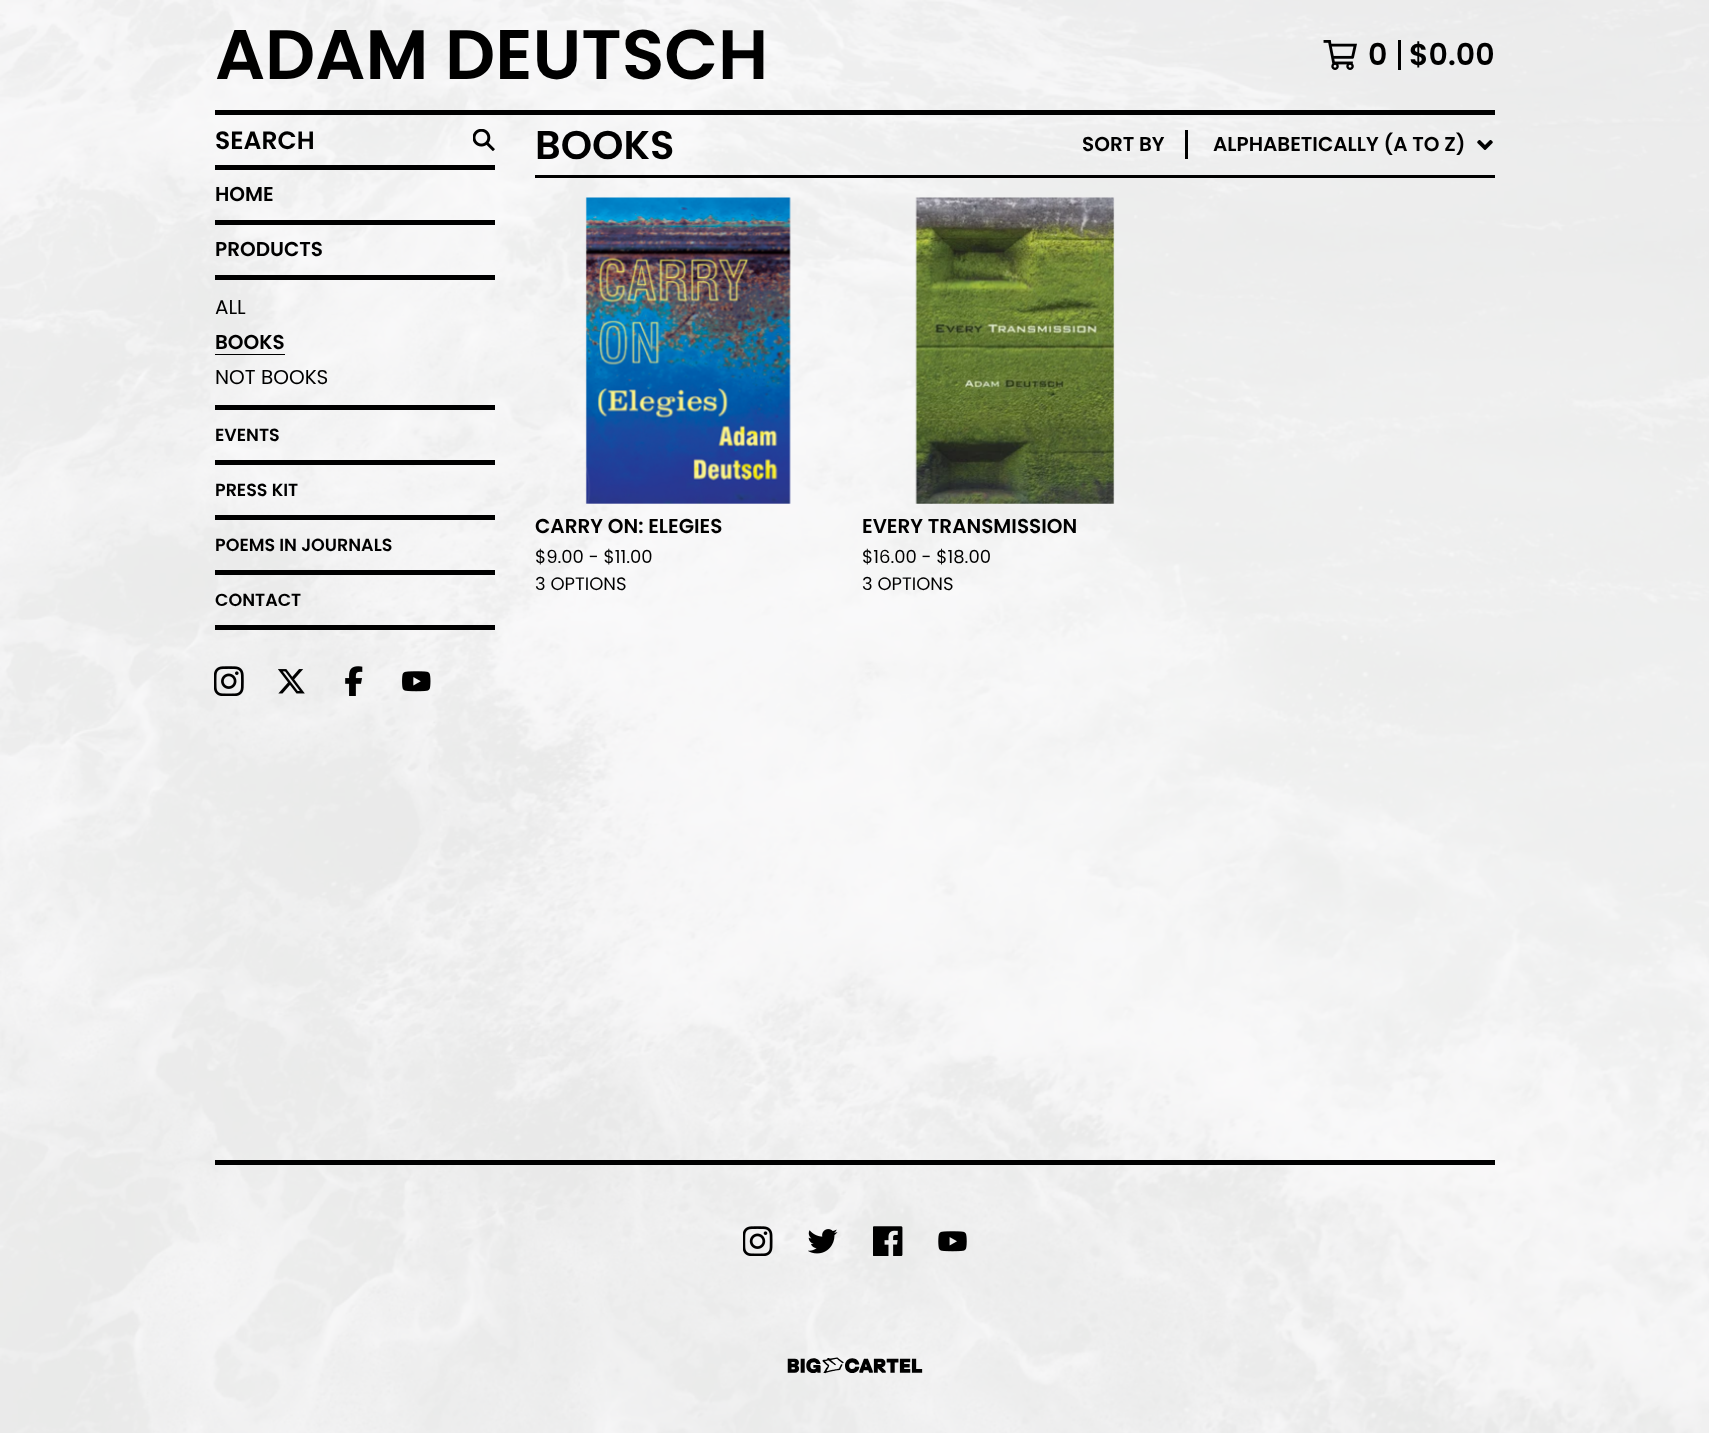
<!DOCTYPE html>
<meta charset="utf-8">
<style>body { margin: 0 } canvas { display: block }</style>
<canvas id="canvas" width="1709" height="1433"></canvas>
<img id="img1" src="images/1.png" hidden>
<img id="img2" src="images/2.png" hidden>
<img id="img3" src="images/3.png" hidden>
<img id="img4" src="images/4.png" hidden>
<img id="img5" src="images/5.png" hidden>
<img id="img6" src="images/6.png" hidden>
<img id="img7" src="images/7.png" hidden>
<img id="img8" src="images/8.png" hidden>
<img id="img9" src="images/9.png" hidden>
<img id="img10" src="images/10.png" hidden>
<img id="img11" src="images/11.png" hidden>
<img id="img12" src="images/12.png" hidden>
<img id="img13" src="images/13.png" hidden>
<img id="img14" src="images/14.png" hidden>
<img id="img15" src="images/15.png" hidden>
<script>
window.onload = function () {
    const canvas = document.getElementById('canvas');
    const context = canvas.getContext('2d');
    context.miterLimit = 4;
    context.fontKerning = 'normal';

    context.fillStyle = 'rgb(255, 255, 255)';
    context.fillRect(0, 0, 1709, 1433);
    context.drawImage(document.getElementById('img1'), 0, 0, 1709, 1433);
    context.fillStyle = 'rgb(0, 0, 0)';
    context.fillRect(215, 110, 1280, 5);
    context.drawImage(document.getElementById('img2'), 1323, 40, 34, 30);
    context.fillRect(1398, 40, 3, 30);
    context.fillRect(215, 165, 280, 5);
    context.drawImage(document.getElementById('img3'), 473, 129, 22, 22);
    context.fillRect(215, 220, 280, 5);
    context.fillRect(215, 405, 280, 5);
    context.fillRect(215, 275, 280, 5);
    context.fillRect(215, 354, 70, 1);
    context.fillRect(215, 625, 280, 5);
    context.fillRect(215, 460, 280, 5);
    context.fillRect(215, 515, 280, 5);
    context.fillRect(215, 570, 280, 5);
    context.drawImage(document.getElementById('img4'), 214, 666, 30, 30);
    context.drawImage(document.getElementById('img5'), 278, 669, 27, 25);
    context.drawImage(document.getElementById('img6'), 345, 666, 18, 30);
    context.drawImage(document.getElementById('img7'), 402, 671, 29, 21);
    context.fillRect(535, 175, 960, 3);
    context.fillRect(1185, 130, 3, 29);
    context.drawImage(document.getElementById('img8'), 1477, 140, 16, 10);
    context.drawImage(document.getElementById('img9'), 585, 197, 206, 307);
    context.drawImage(document.getElementById('img10'), 915, 197, 200, 307);
    context.fillRect(215, 1160, 1280, 5);
    context.drawImage(document.getElementById('img11'), 743, 1226, 30, 30);
    context.drawImage(document.getElementById('img12'), 808, 1229, 30, 25);
    context.drawImage(document.getElementById('img13'), 873, 1226, 30, 30);
    context.drawImage(document.getElementById('img14'), 938, 1231, 29, 21);
    context.drawImage(document.getElementById('img15'), 787, 1357, 136, 17);
    context.font = '600 70px Poppins';
    context.fillText('ADAM DEUTSCH', 215, 79);
    context.font = '600 30px Poppins';
    context.fillText('0', 1368, 65);
    context.fillText('$0.00', 1409, 65);
    context.font = '600 25px Poppins';
    context.fillText('SEARCH', 215, 149);
    context.font = '600 20px Poppins';
    context.fillText('HOME', 215, 201);
    context.fillText('PRODUCTS', 215, 256);
    context.font = '20px Poppins';
    context.fillText('ALL', 215, 314);
    context.font = '600 20px Poppins';
    context.fillText('BOOKS', 215, 349);
    context.font = '20px Poppins';
    context.fillText('NOT BOOKS', 215, 384);
    context.font = '600 17.5px Poppins';
    context.fillText('EVENTS', 215, 441);
    context.fillText('PRESS KIT', 215, 496);
    context.fillText('POEMS IN JOURNALS', 215, 551);
    context.fillText('CONTACT', 215, 606);
    context.font = '600 40px Poppins';
    context.fillText('BOOKS', 535, 159);
    context.font = '600 20px Poppins';
    context.fillText('SORT BY', 1082, 151);
    context.fillText('ALPHABETICALLY (A TO Z)', 1213, 151);
    context.fillText('CARRY ON: ELEGIES', 535, 533);
    context.font = '18px Poppins';
    context.fillText('$9.00 - $11.00', 535, 563);
    context.fillText('3 OPTIONS', 535, 590);
    context.font = '600 20px Poppins';
    context.fillText('EVERY TRANSMISSION', 862, 533);
    context.font = '18px Poppins';
    context.fillText('$16.00 - $18.00', 862, 563);
    context.fillText('3 OPTIONS', 862, 590);
};
</script>
